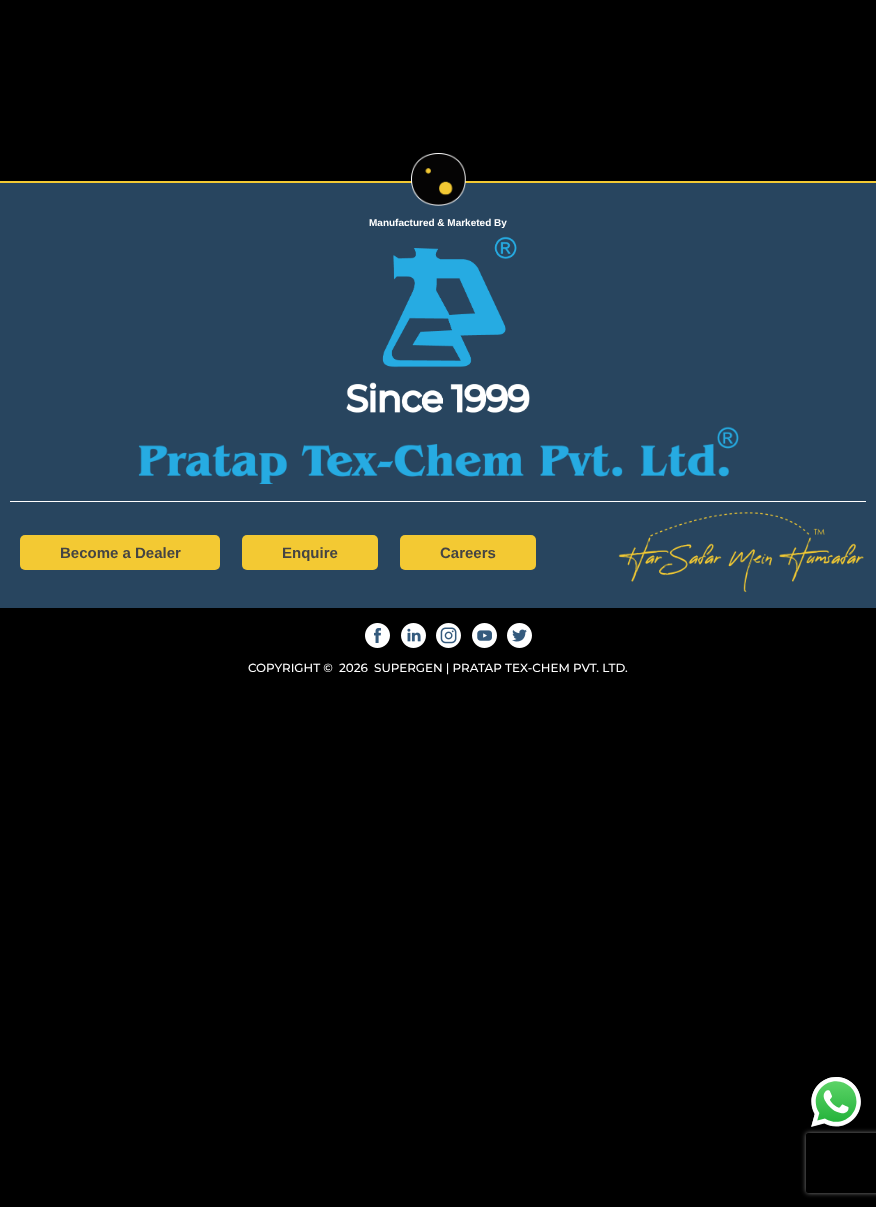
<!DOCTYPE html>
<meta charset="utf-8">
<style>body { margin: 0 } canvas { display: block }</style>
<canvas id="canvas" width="876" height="1207"></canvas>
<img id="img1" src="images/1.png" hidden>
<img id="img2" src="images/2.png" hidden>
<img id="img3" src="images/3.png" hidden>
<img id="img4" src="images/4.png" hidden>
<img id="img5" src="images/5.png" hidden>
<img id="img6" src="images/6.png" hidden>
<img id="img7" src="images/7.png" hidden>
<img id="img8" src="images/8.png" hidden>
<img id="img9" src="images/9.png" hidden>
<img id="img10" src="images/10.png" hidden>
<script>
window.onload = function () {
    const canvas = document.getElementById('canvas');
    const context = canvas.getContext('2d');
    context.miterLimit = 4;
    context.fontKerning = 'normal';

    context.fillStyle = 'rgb(0, 0, 0)';
    context.fillRect(0, 0, 876, 1207);
    context.fillStyle = 'rgb(40, 69, 95)';
    context.fillRect(0, 183, 876, 425);
    context.fillStyle = 'rgb(243, 201, 51)';
    context.fillRect(0, 181, 876, 2);
    context.drawImage(document.getElementById('img1'), 411, 153, 55, 53);
    context.drawImage(document.getElementById('img2'), 346, 236, 184, 177);
    context.drawImage(document.getElementById('img3'), 138, 426, 601, 58);
    context.fillStyle = 'rgb(255, 255, 255)';
    context.fillRect(10, 501, 856, 1);
    context.fillStyle = 'rgb(243, 201, 51)';
    context.beginPath();
    context.roundRect(20, 535, 200, 35, 5);
    context.fill();
    context.beginPath();
    context.roundRect(242, 535, 136, 35, 5);
    context.fill();
    context.beginPath();
    context.roundRect(400, 535, 136, 35, 5);
    context.fill();
    context.drawImage(document.getElementById('img4'), 618, 512, 246, 81);
    context.drawImage(document.getElementById('img5'), 365, 623, 25, 25);
    context.drawImage(document.getElementById('img6'), 401, 623, 25, 25);
    context.drawImage(document.getElementById('img7'), 436, 623, 25, 25);
    context.drawImage(document.getElementById('img8'), 472, 623, 25, 25);
    context.drawImage(document.getElementById('img9'), 507, 623, 25, 25);
    context.save();
    context.beginPath();
    context.moveTo(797, 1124);
    context.lineTo(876, 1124);
    context.lineTo(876, 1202);
    context.lineTo(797, 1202);
    context.closePath();
    context.moveTo(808, 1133);
    context.lineTo(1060, 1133);
    context.bezierCurveTo(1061, 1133, 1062, 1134, 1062, 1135);
    context.lineTo(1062, 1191);
    context.bezierCurveTo(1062, 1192, 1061, 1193, 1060, 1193);
    context.lineTo(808, 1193);
    context.bezierCurveTo(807, 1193, 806, 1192, 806, 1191);
    context.lineTo(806, 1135);
    context.bezierCurveTo(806, 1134, 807, 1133, 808, 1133);
    context.closePath();
    context.clip('evenodd');
    context.fillStyle = 'rgb(128, 128, 128)';
    context.filter = 'blur(2.5px)';
    context.beginPath();
    context.roundRect(806, 1133, 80, 60, 2);
    context.fill();
    context.filter = 'none';
    context.restore();
    context.drawImage(document.getElementById('img10'), 811, 1077, 50, 50);
    context.font = 'bold 10px Liberation Sans';
    context.fillStyle = 'rgb(255, 255, 255)';
    context.fillText('Manufactured & Marketed By', 369, 226);
    context.font = 'bold 15px Liberation Sans';
    context.fillStyle = 'rgb(68, 68, 68)';
    context.fillText('Become a Dealer', 60, 558);
    context.fillText('Enquire', 282, 558);
    context.fillText('Careers', 440, 558);
    context.font = '500 11.9px Montserrat';
    context.fillStyle = 'rgb(255, 255, 255)';
    context.fillText('COPYRIGHT ©', 248, 672);
    context.fillText('2026', 339, 672);
    context.fillText('SUPERGEN | PRATAP TEX-CHEM PVT. LTD.', 374, 672);
};
</script>
